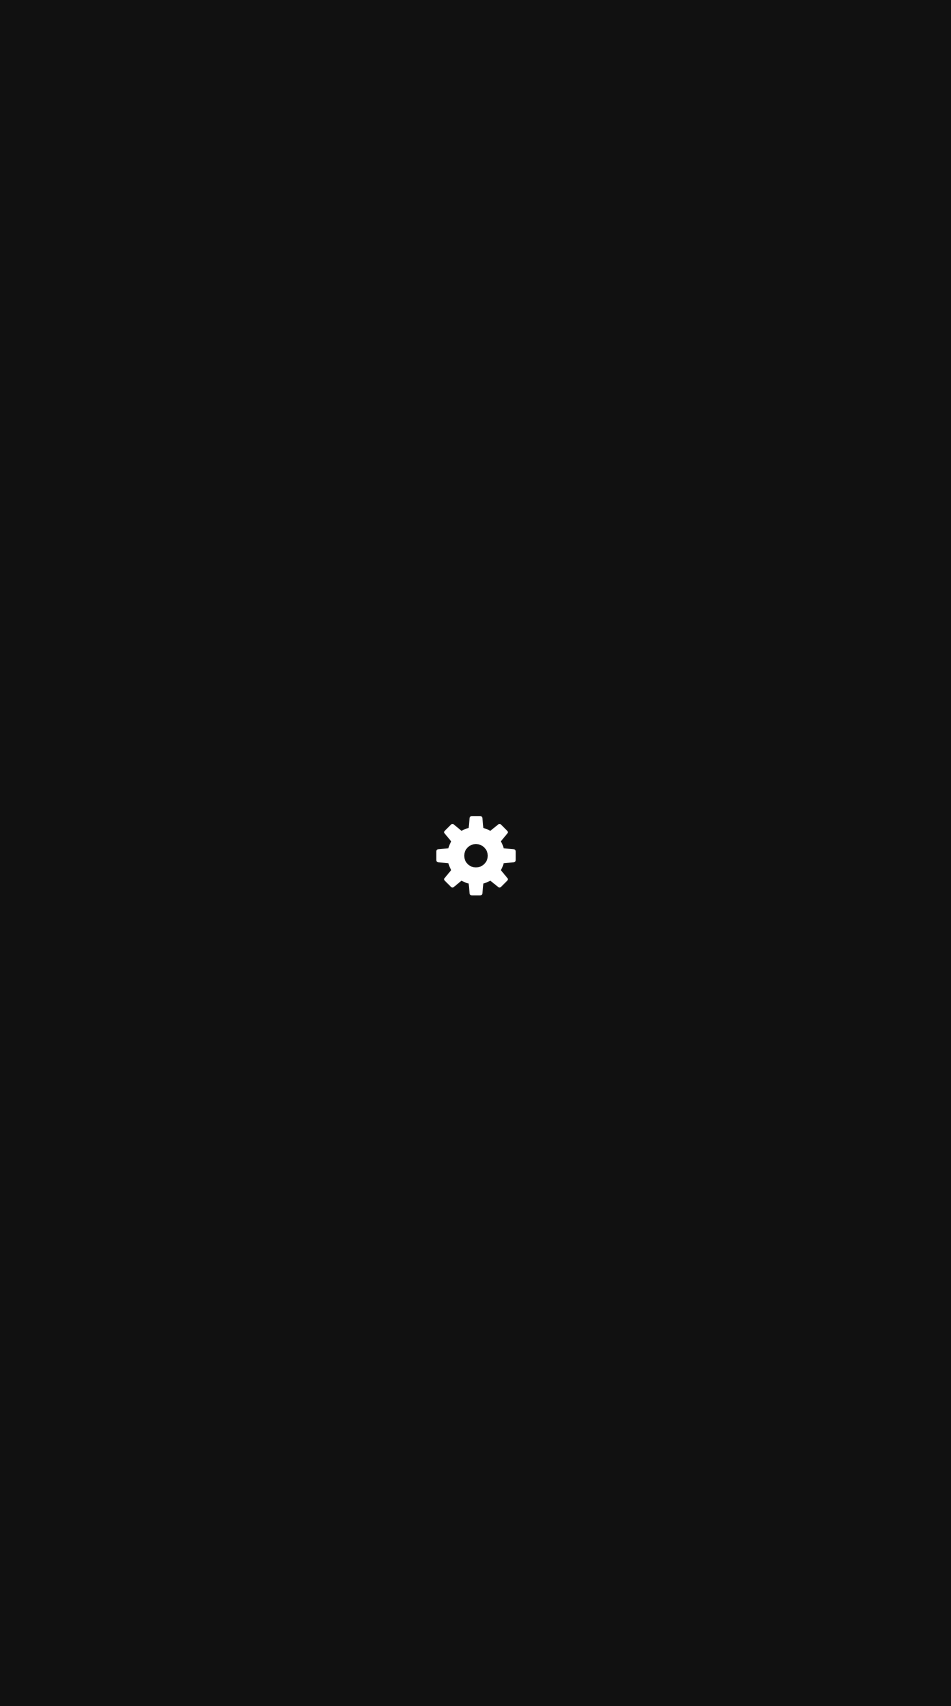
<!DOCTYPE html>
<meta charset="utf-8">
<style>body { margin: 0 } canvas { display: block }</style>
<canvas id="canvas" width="951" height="1706"></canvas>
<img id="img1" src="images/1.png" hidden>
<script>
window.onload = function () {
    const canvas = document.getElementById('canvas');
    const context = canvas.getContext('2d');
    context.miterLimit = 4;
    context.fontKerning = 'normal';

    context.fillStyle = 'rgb(17, 17, 17)';
    context.fillRect(0, 0, 951, 1706);
    context.drawImage(document.getElementById('img1'), 436, 816, 80, 80);
};
</script>
